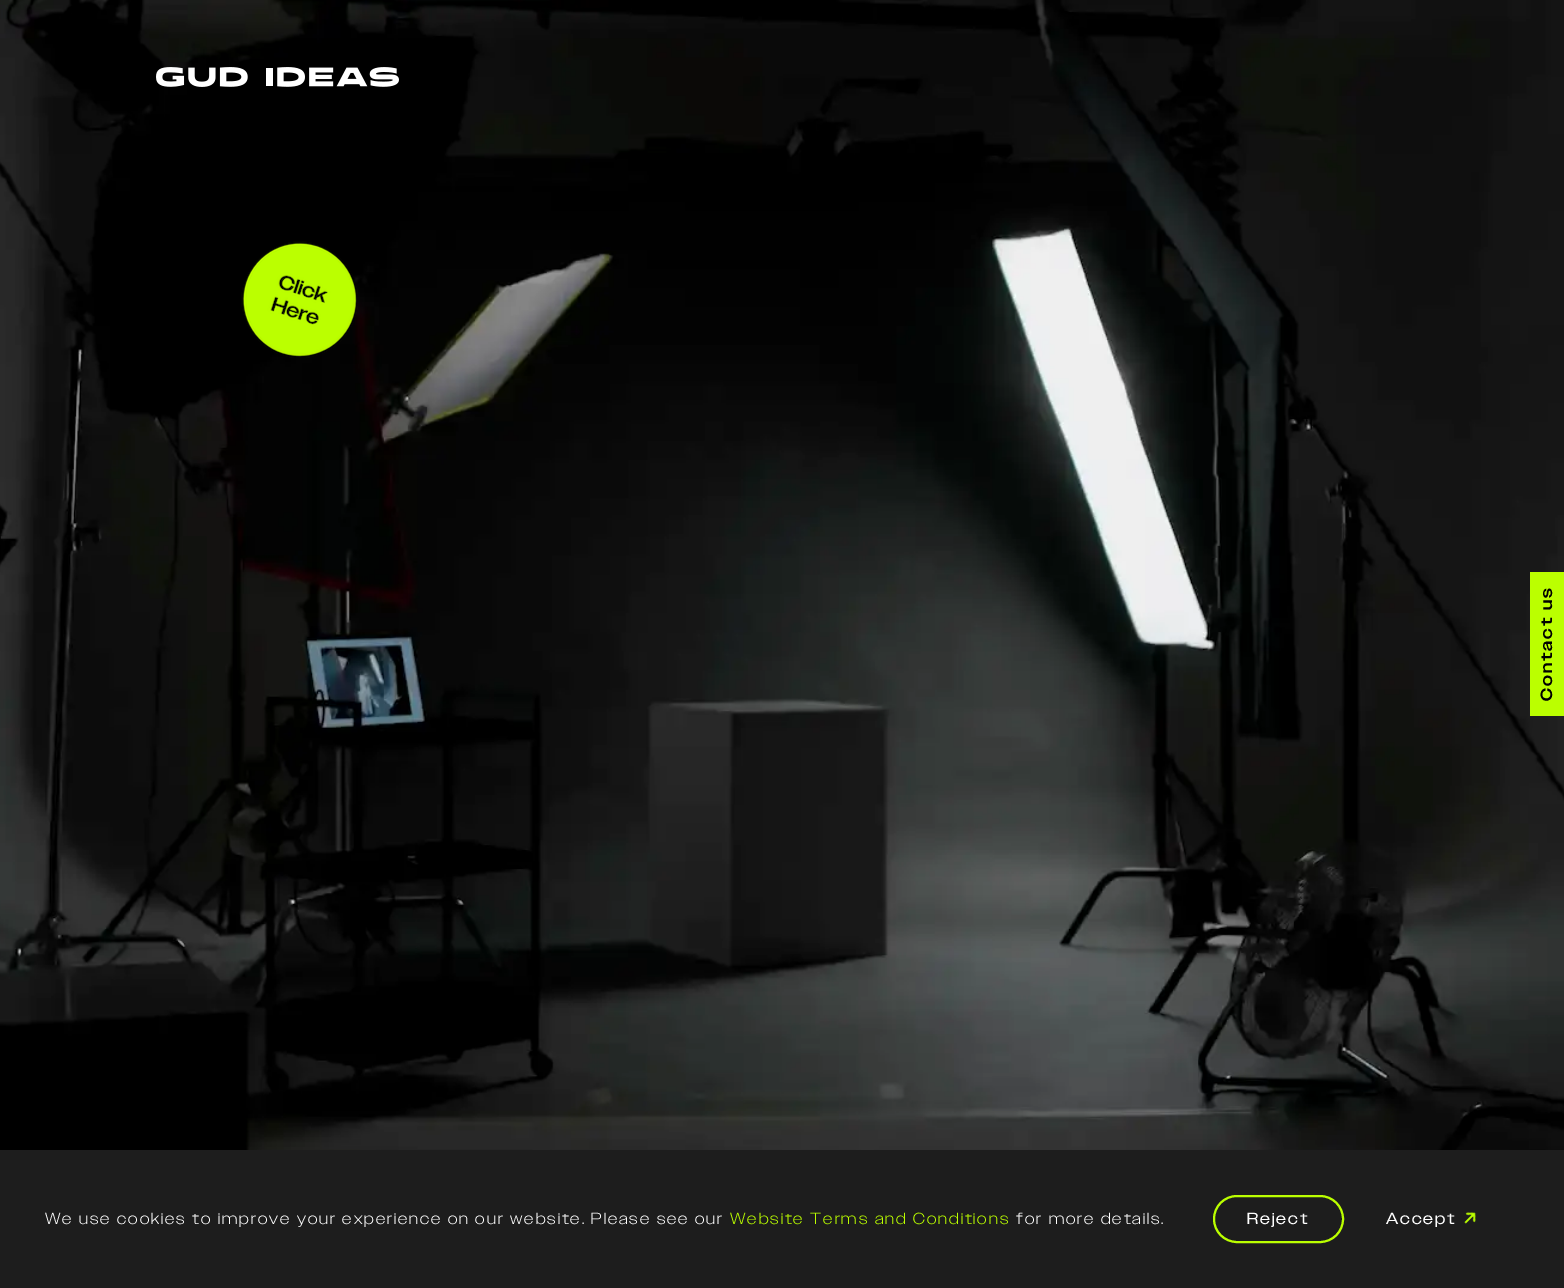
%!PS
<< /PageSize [1564 1288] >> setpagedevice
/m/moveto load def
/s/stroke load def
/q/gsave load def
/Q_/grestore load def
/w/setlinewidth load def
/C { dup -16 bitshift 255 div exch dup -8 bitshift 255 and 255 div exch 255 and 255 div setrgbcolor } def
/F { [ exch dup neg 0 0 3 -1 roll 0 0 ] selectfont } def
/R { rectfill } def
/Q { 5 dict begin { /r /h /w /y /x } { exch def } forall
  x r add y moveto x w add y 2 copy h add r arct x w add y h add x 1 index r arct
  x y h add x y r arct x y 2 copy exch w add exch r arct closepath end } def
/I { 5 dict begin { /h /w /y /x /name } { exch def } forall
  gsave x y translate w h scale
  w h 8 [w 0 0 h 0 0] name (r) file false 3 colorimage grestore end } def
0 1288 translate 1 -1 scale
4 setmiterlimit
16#FFFFFF C
0 0 1564 1288 R
(1.rgb) 0 0 1564 1150 I
(2.rgb) 156 67 243 20 I
(3.rgb) 241 241 117 117 I
16#BBFF00 C
1530 572 34 144 R
/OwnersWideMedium-Medium 16 F
16#000000 C
q 1552 701 translate -90 rotate 0 0 m 2 0 (Contact us) ashow Q_
16#1D1D1D C
0 1150 1564 138 R
/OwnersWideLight-Light 16 F
16#FFFFFF C
45 1224 m 2 0 (We use cookies to improve your experience on our website. Please see our) ashow
16#BBFF00 C
730 1224 m 2 0 (Website Terms and Conditions) ashow
16#FFFFFF C
1016 1224 m 2 0 (for more details.) ashow
16#BBFF00 C
2 w
1214 1196 129 46 23 Q s
/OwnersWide-Regular 16 F
16#FFFFFF C
1247 1224 m 2 0 (Reject) ashow
1386 1224 m 2 0 (Accept) ashow
(4.rgb) 1464 1212 12 12 I
showpage
